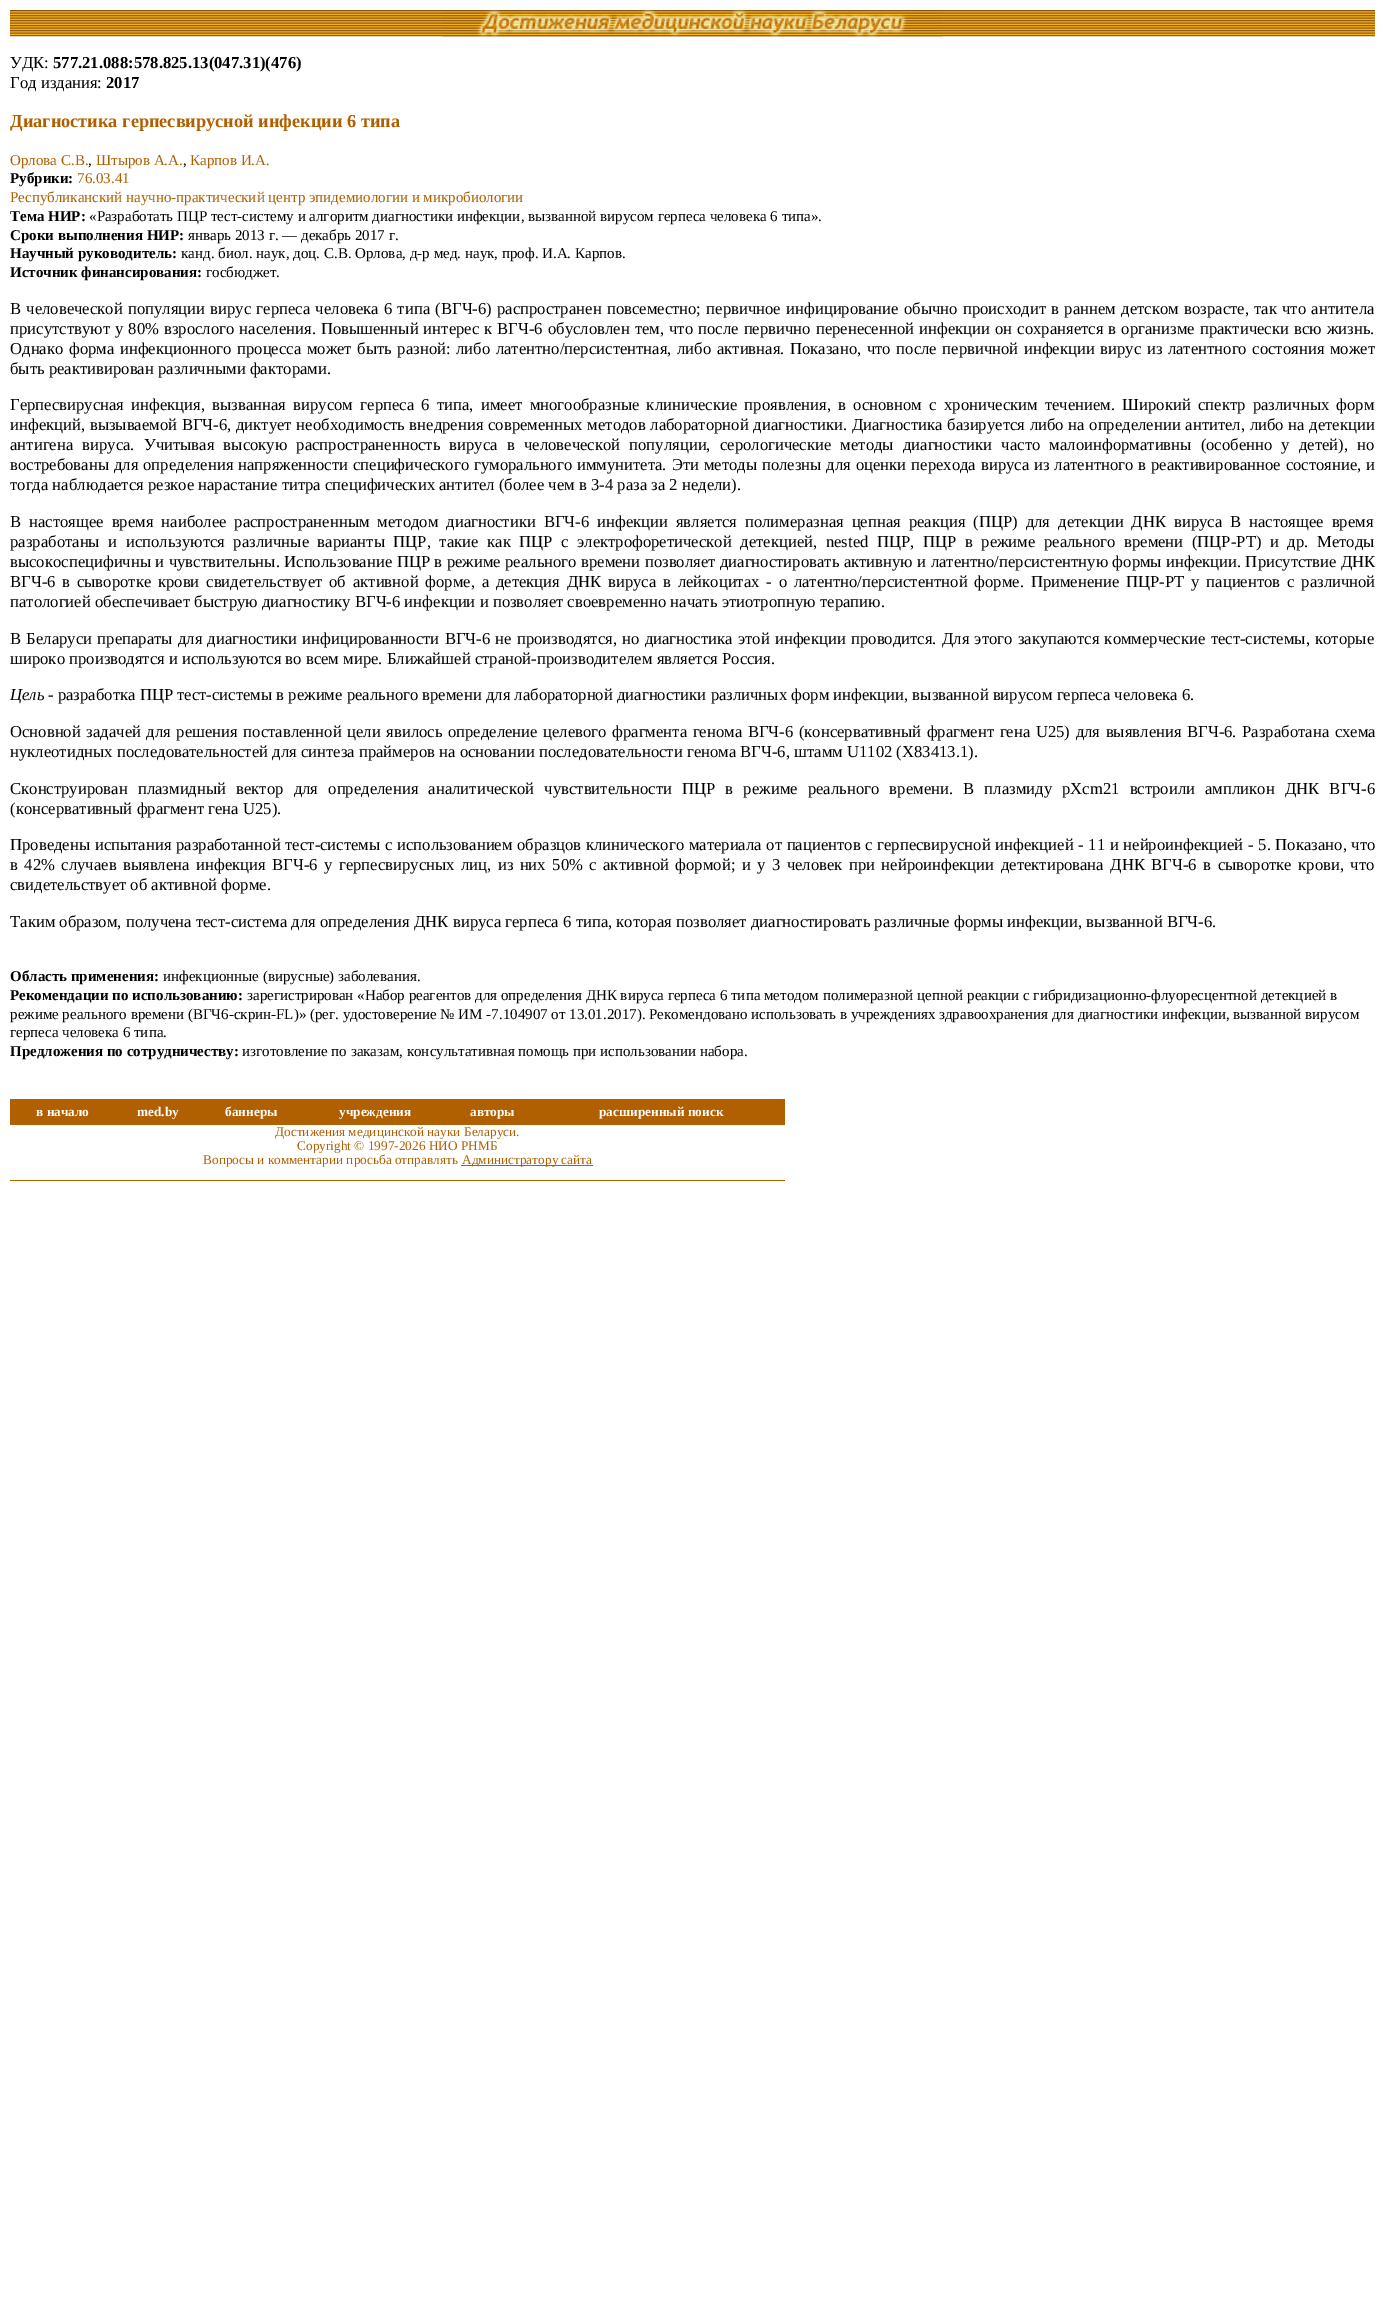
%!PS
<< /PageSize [1384 2316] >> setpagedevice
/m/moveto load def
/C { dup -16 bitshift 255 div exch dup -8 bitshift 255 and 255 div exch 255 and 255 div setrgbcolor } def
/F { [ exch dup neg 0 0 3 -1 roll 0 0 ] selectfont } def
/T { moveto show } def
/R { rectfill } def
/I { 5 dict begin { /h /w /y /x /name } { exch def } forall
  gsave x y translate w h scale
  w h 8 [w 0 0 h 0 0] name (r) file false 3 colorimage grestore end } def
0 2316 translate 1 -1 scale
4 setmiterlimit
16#FFFFFF C
0 0 1384 2316 R
(1.rgb) 10 10 1365 27 I
(2.rgb) 442 10 501 27 I
/LiberationSerif-Regular 16.67 F
16#000000 C
(УДК:) 10 68 T
/LiberationSerif-Bold 16.67 F
(577.21.088:578.825.13\(047.31\)\(476\)) 53 68 T
/LiberationSerif-Regular 16.67 F
(Год издания:) 10 88 T
/LiberationSerif-Bold 16.67 F
(2017) 106 88 T
/LiberationSerif-Bold 18.3 F
16#B06000 C
(Диагностика герпесвирусной инфекции 6 типа) 10 127 T
/LiberationSerif-Regular 15 F
(Орлова С.В.) 10 165 T
16#000000 C
(,) 88 165 T
16#B06000 C
(Штыров А.А.) 96 165 T
16#000000 C
(,) 183 165 T
16#B06000 C
(Карпов И.А.) 190 165 T
/LiberationSerif-Bold 15 F
16#000000 C
(Рубрики:) 10 183 T
/LiberationSerif-Regular 15 F
16#B06000 C
(76.03.41) 77 183 T
(Республиканский научно-практический центр эпидемиологии и микробиологии) 10 202 T
/LiberationSerif-Bold 15 F
16#000000 C
(Тема НИР:) 10 221 T
/LiberationSerif-Regular 15 F
(«Разработать ПЦР тест-систему и алгоритм диагностики инфекции, вызванной вирусом герпеса человека 6 типа».) 89 221 T
/LiberationSerif-Bold 15 F
(Сроки выполнения НИР:) 10 240 T
/LiberationSerif-Regular 15 F
(январь 2013 г. — декабрь 2017 г.) 188 240 T
/LiberationSerif-Bold 15 F
(Научный руководитель:) 10 258 T
/LiberationSerif-Regular 15 F
(канд. биол. наук, доц. С.В. Орлова, д-р мед. наук, проф. И.А. Карпов.) 181 258 T
/LiberationSerif-Bold 15 F
(Источник финансирования:) 10 277 T
/LiberationSerif-Regular 15 F
(госбюджет.) 206 277 T
/LiberationSerif-Regular 16.67 F
10 314 m 1.1 0 32 (В человеческой популяции вирус герпеса человека 6 типа \(ВГЧ-6\) распространен повсеместно; первичное инфицирование обычно происходит в раннем детском возрасте, так что антитела) widthshow
10 334 m .9 0 32 (присутствуют у 80% взрослого населения. Повышенный интерес к ВГЧ-6 обусловлен тем, что после первично перенесенной инфекции он сохраняется в организме практически всю жизнь.) widthshow
10 354 m 1.4 0 32 (Однако форма инфекционного процесса может быть разной: либо латентно/персистентная, либо активная. Показано, что после первичной инфекции вирус из латентного состояния может) widthshow
(быть реактивирован различными факторами.) 10 374 T
10 410 m 3.1 0 32 (Герпесвирусная инфекция, вызванная вирусом герпеса 6 типа, имеет многообразные клинические проявления, в основном с хроническим течением. Широкий спектр различных форм) widthshow
10 430 m .5 0 32 (инфекций, вызываемой ВГЧ-6, диктует необходимость внедрения современных методов лабораторной диагностики. Диагностика базируется либо на определении антител, либо на детекции) widthshow
10 450 m 5 0 32 (антигена вируса. Учитывая высокую распространенность вируса в человеческой популяции, серологические методы диагностики часто малоинформативны \(особенно у детей\), но) widthshow
10 470 m .75 0 32 (востребованы для определения напряженности специфического гуморального иммунитета. Эти методы полезны для оценки перехода вируса из латентного в реактивированное состояние, и) widthshow
(тогда наблюдается резкое нарастание титра специфических антител \(более чем в 3-4 раза за 2 недели\).) 10 490 T
10 527 m 3.75 0 32 (В настоящее время наиболее распространенным методом диагностики ВГЧ-6 инфекции является полимеразная цепная реакция \(ПЦР\) для детекции ДНК вируса В настоящее время) widthshow
10 547 m 4.4 0 32 (разработаны и используются различные варианты ПЦР, такие как ПЦР с электрофоретической детекцией, nested ПЦР, ПЦР в режиме реального времени \(ПЦР-РТ\) и др. Методы) widthshow
10 567 m .25 0 32 (высокоспецифичны и чувствительны. Использование ПЦР в режиме реального времени позволяет диагностировать активную и латентно/персистентную формы инфекции. Присутствие ДНК) widthshow
10 587 m 2.6 0 32 (ВГЧ-6 в сыворотке крови свидетельствует об активной форме, а детекция ДНК вируса в лейкоцитах - о латентно/персистентной форме. Применение ПЦР-РТ у пациентов с различной) widthshow
(патологией обеспечивает быструю диагностику ВГЧ-6 инфекции и позволяет своевременно начать этиотропную терапию.) 10 607 T
10 644 m 1.1 0 32 (В Беларуси препараты для диагностики инфицированности ВГЧ-6 не производятся, но диагностика этой инфекции проводится. Для этого закупаются коммерческие тест-системы, которые) widthshow
(широко производятся и используются во всем мире. Ближайшей страной-производителем является Россия.) 10 664 T
/LiberationSerif-Italic 16.67 F
(Цель) 10 700 T
/LiberationSerif-Regular 16.67 F
(- разработка ПЦР тест-системы в режиме реального времени для лабораторной диагностики различных форм инфекции, вызванной вирусом герпеса человека 6.) 48 700 T
10 737 m 1.4 0 32 (Основной задачей для решения поставленной цели явилось определение целевого фрагмента генома ВГЧ-6 \(консервативный фрагмент гена U25\) для выявления ВГЧ-6. Разработана схема) widthshow
(нуклеотидных последовательностей для синтеза праймеров на основании последовательности генома ВГЧ-6, штамм U1102 \(X83413.1\).) 10 757 T
10 794 m 6 0 32 (Сконструирован плазмидный вектор для определения аналитической чувствительности ПЦР в режиме реального времени. В плазмиду pXcm21 встроили ампликон ДНК ВГЧ-6) widthshow
(\(консервативный фрагмент гена U25\).) 10 814 T
10 850 m .5 0 32 (Проведены испытания разработанной тест-системы с использованием образцов клинического материала от пациентов с герпесвирусной инфекцией - 11 и нейроинфекцией - 5. Показано, что) widthshow
10 870 m 2.3 0 32 (в 42% случаев выявлена инфекция ВГЧ-6 у герпесвирусных лиц, из них 50% с активной формой; и у 3 человек при нейроинфекции детектирована ДНК ВГЧ-6 в сыворотке крови, что) widthshow
(свидетельствует об активной форме.) 10 890 T
(Таким образом, получена тест-система для определения ДНК вируса герпеса 6 типа, которая позволяет диагностировать различные формы инфекции, вызванной ВГЧ-6.) 10 927 T
/LiberationSerif-Bold 15 F
(Область применения:) 10 981 T
/LiberationSerif-Regular 15 F
(инфекционные \(вирусные\) заболевания.) 163 981 T
/LiberationSerif-Bold 15 F
(Рекомендации по использованию:) 10 1000 T
/LiberationSerif-Regular 15 F
(зарегистрирован «Набор реагентов для определения ДНК вируса герпеса 6 типа методом полимеразной цепной реакции с гибридизационно-флуоресцентной детекцией в) 247 1000 T
(режиме реального времени \(ВГЧ6-скрин-FL\)» \(рег. удостоверение № ИМ -7.104907 от 13.01.2017\). Рекомендовано использовать в учреждениях здравоохранения для диагностики инфекции, вызванной вирусом) 10 1019 T
(герпеса человека 6 типа.) 10 1037 T
/LiberationSerif-Bold 15 F
(Предложения по сотрудничеству:) 10 1056 T
/LiberationSerif-Regular 15 F
(изготовление по заказам, консультативная помощь при использовании набора.) 242 1056 T
16#B06000 C
10 1099 775 26 R
/LiberationSerif-Bold 13.3 F
16#FFFFFF C
(в начало) 36 1116 T
(med.by) 137 1116 T
(баннеры) 225 1116 T
(учреждения) 339 1116 T
(авторы) 470 1116 T
(расширенный поиск) 599 1116 T
/LiberationSerif-Regular 13.3 F
16#B06000 C
(Достижения медицинской науки Беларуси.) 275 1136 T
(Copyright © 1997-2026 НИО РНМБ) 297 1150 T
(Вопросы и комментарии просьба отправлять) 203 1164 T
461 1165 132 1 R
(Администратору сайта) 462 1164 T
10 1180 775 1 R
showpage
